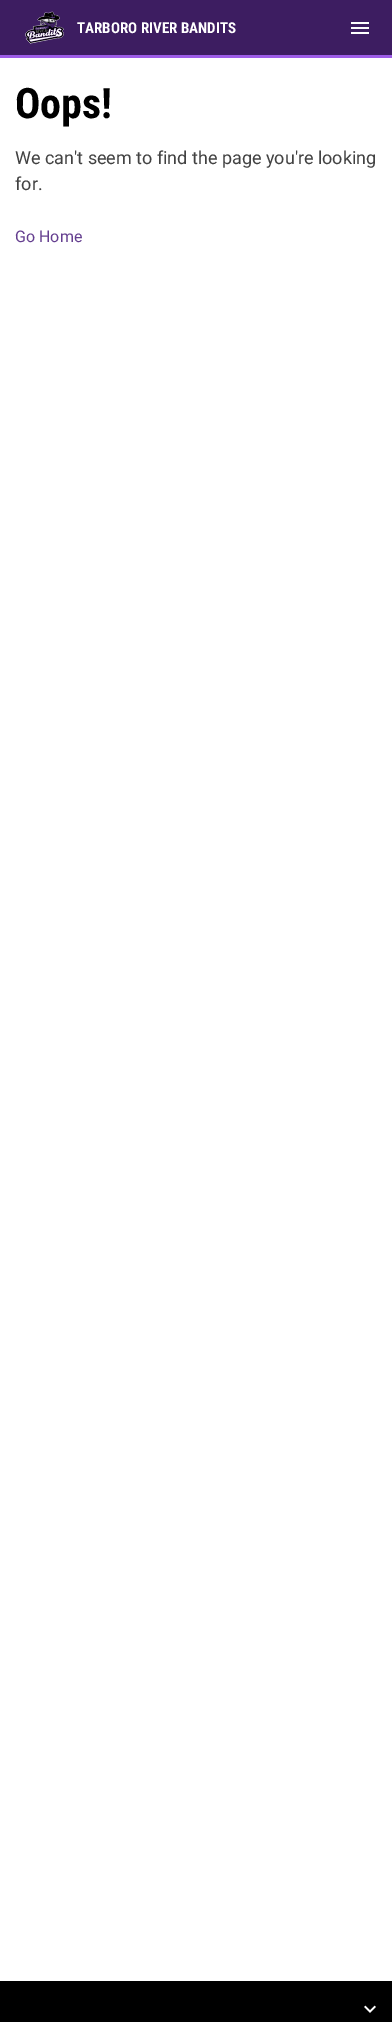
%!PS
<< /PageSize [392 2022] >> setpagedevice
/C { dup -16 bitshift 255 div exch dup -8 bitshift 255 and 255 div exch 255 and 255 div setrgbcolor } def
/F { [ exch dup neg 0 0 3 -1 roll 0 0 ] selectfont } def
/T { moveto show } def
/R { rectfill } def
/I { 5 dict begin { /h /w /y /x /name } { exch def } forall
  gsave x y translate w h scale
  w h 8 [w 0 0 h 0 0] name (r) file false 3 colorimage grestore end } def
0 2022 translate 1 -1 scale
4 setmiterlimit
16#FFFFFF C
0 0 392 2022 R
16#3D1D61 C
0 0 392 55 R
(1.rgb) 25 11 39 33 I
/RobotoCondensed-Bold 15 F
16#FFFFFF C
(TARBORO RIVER BANDITS) 77 33 T
(2.rgb) 351 22 18 12 I
16#9D5CE7 C
0 55 392 3 R
/RobotoCondensed-Bold 42 F
16#000000 C
(Oops!) 15 118 T
/Roboto-Regular 18 F
16#424242 C
(We can't seem to find the page you're looking) 15 164 T
(for.) 15 190 T
/Roboto-Regular 16 F
16#653F90 C
(Go Home) 15 242 T
16#000000 C
0 1981 392 41 R
(3.rgb) 364 2005 12 8 I
showpage
